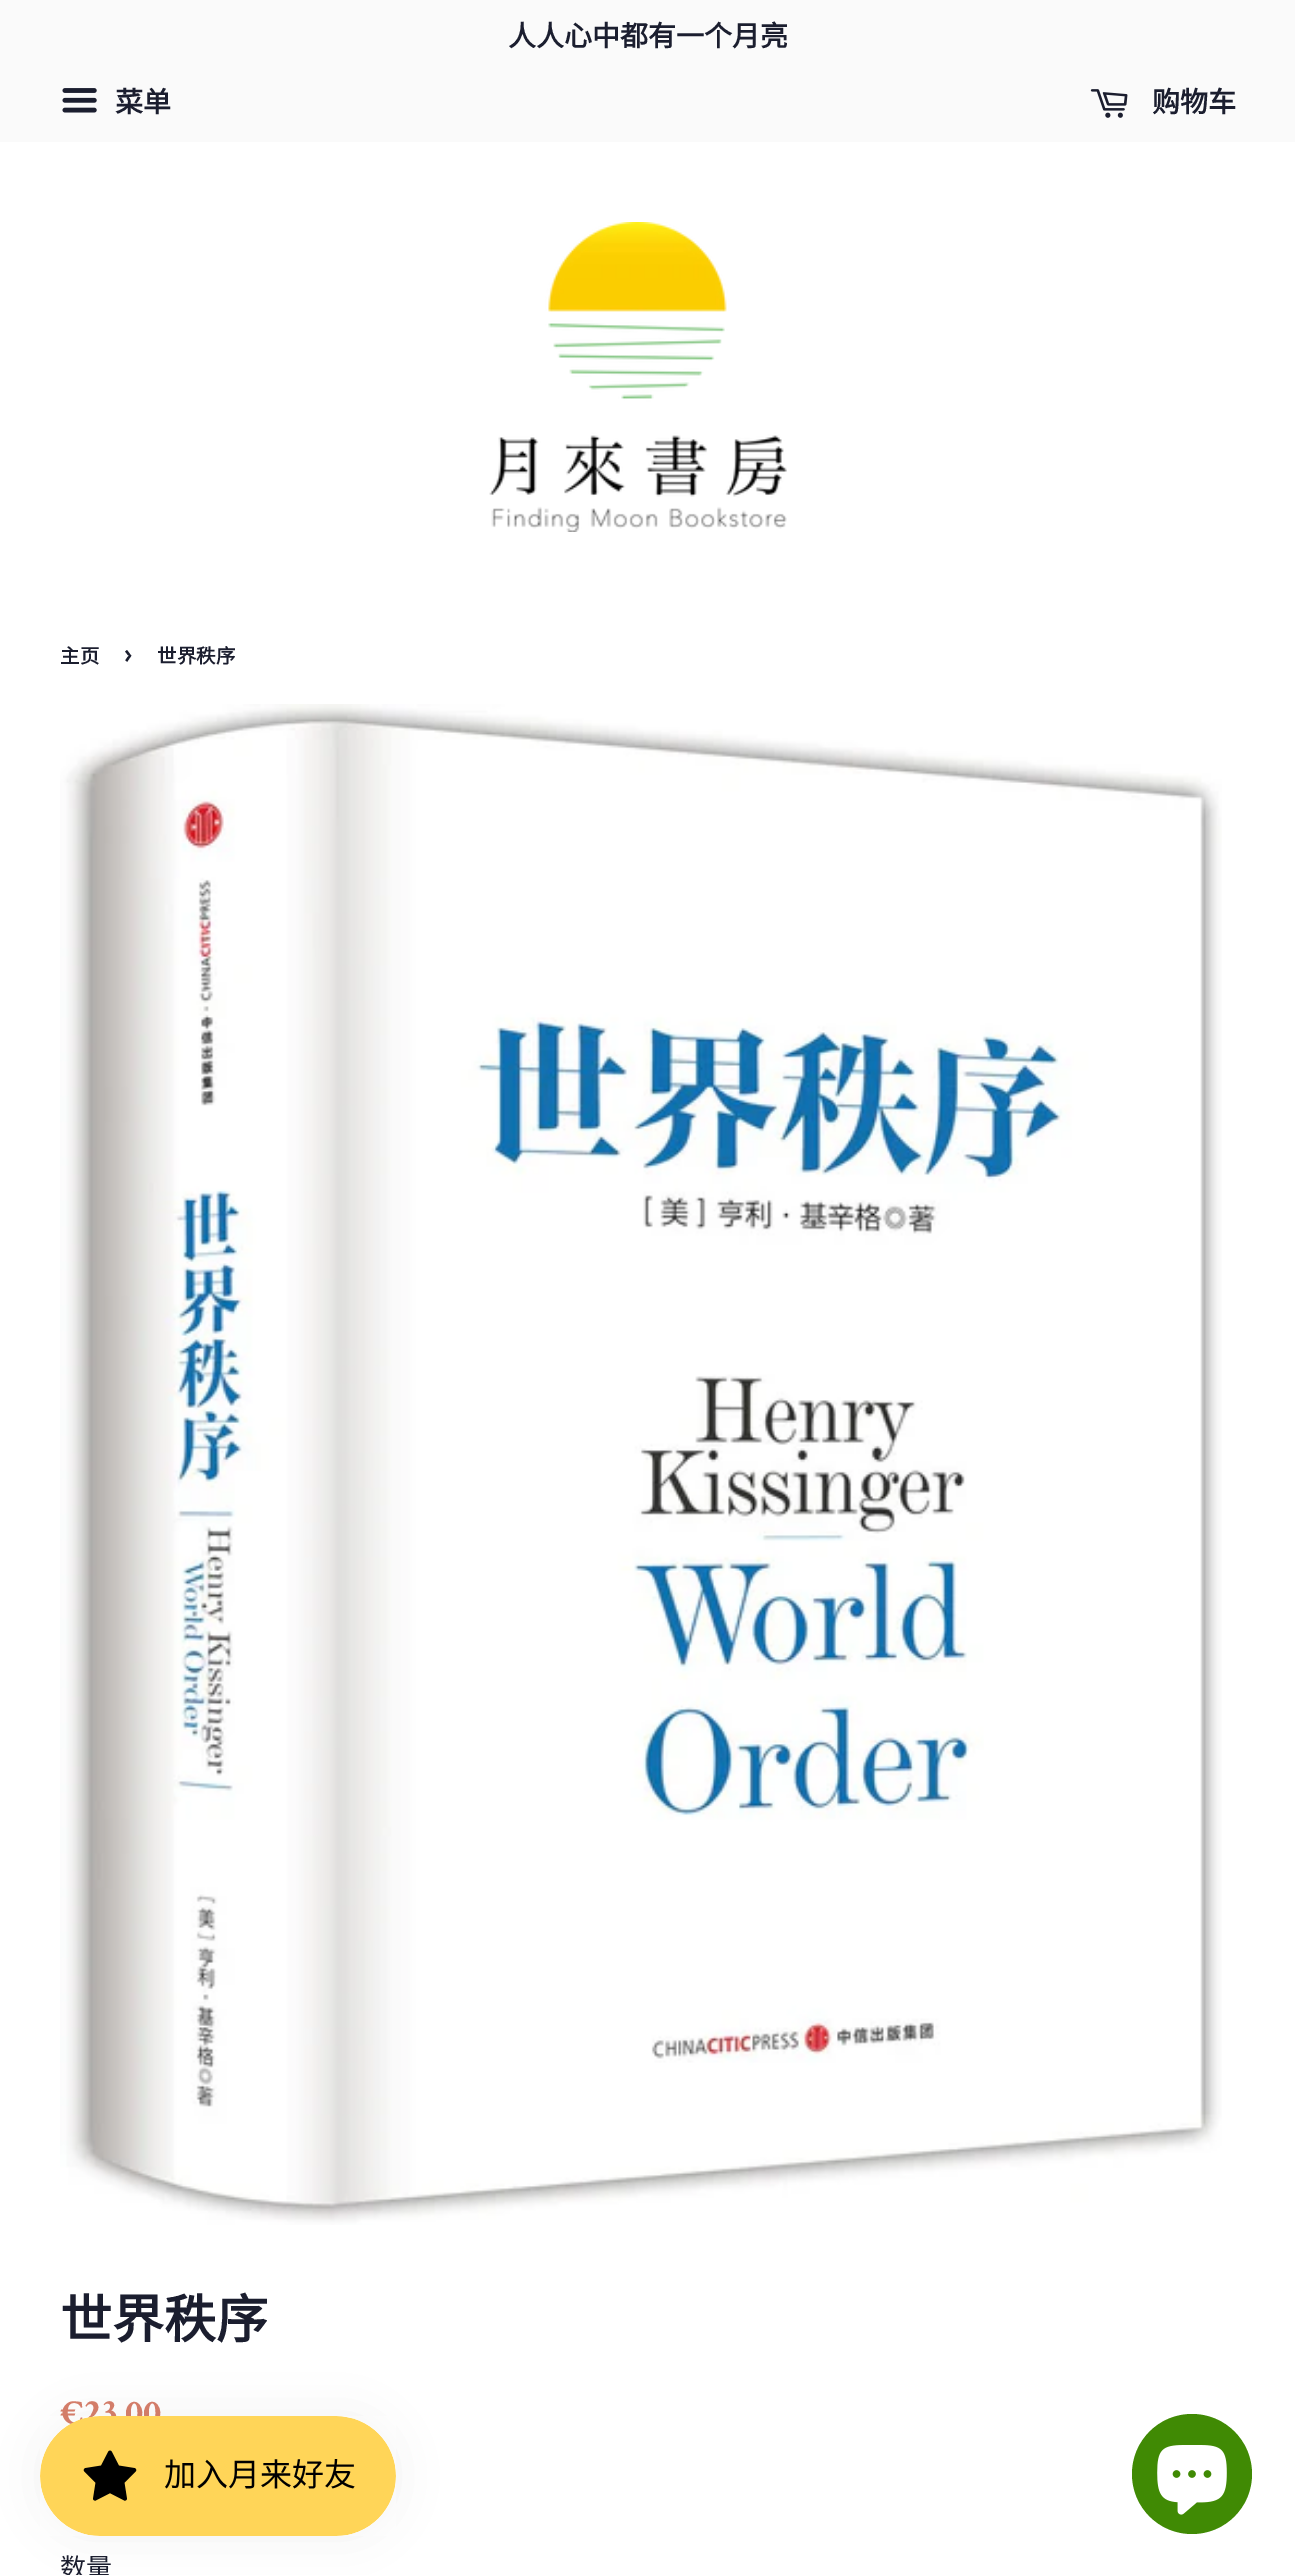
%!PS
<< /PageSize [1295 2575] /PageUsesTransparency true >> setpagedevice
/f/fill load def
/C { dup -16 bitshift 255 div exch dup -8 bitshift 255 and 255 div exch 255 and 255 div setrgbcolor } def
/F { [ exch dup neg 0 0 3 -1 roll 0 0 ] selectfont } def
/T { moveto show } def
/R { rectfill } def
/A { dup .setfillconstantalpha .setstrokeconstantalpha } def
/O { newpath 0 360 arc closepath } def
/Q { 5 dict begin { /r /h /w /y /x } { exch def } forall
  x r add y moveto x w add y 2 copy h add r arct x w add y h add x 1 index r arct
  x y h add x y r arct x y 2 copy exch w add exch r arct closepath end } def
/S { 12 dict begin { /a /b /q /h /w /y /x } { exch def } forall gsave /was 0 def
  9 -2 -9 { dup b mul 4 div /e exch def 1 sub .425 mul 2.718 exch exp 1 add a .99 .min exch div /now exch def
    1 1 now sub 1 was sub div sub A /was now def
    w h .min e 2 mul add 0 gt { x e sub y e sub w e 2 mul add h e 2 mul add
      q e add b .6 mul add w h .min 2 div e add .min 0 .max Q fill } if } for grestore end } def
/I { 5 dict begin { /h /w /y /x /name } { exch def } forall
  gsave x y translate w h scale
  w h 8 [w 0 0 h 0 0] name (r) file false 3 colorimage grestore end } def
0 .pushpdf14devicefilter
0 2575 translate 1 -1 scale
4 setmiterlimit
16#FFFFFF C
0 0 1295 2575 R
16#FAFAFA C
0 0 1295 142 R
/NotoSansCJKSC-Bold 28 F
16#1B1E2F C
(人人心中都有一个月亮) 508 46 T
(1.rgb) 62 88 35 25 I
(菜单) 115 112 T
(2.rgb) 1090 89 38 29 I
(购物车) 1152 112 T
(3.rgb) 489 222 298 310 I
/NotoSansCJKSC-Bold 19.5 F
(主页) 60 663 T
/PTSans-Bold 27 F
(›) 124 663 T
/NotoSansCJKSC-Bold 19.5 F
(世界秩序) 157 663 T
(4.rgb) 60 704 1162 1521 I
/NotoSansCJKSC-Bold 52 F
(世界秩序) 60 2338 T
/CrimsonText-Bold 36.5 F
16#D77E6A C
(€23,00) 60 2424 T
/NotoSansCJKSC-Regular 26 F
16#1B1E2F C
(数量) 60 2577 T
16#000000 C
40 2416 356 120 60 25 .05 S
(5.rgb) 40 2416 356 120 I
16#408A04 C
1192 2474 60 O f
(6.rgb) 1157 2445 70 70 I
.poppdf14devicefilter showpage
